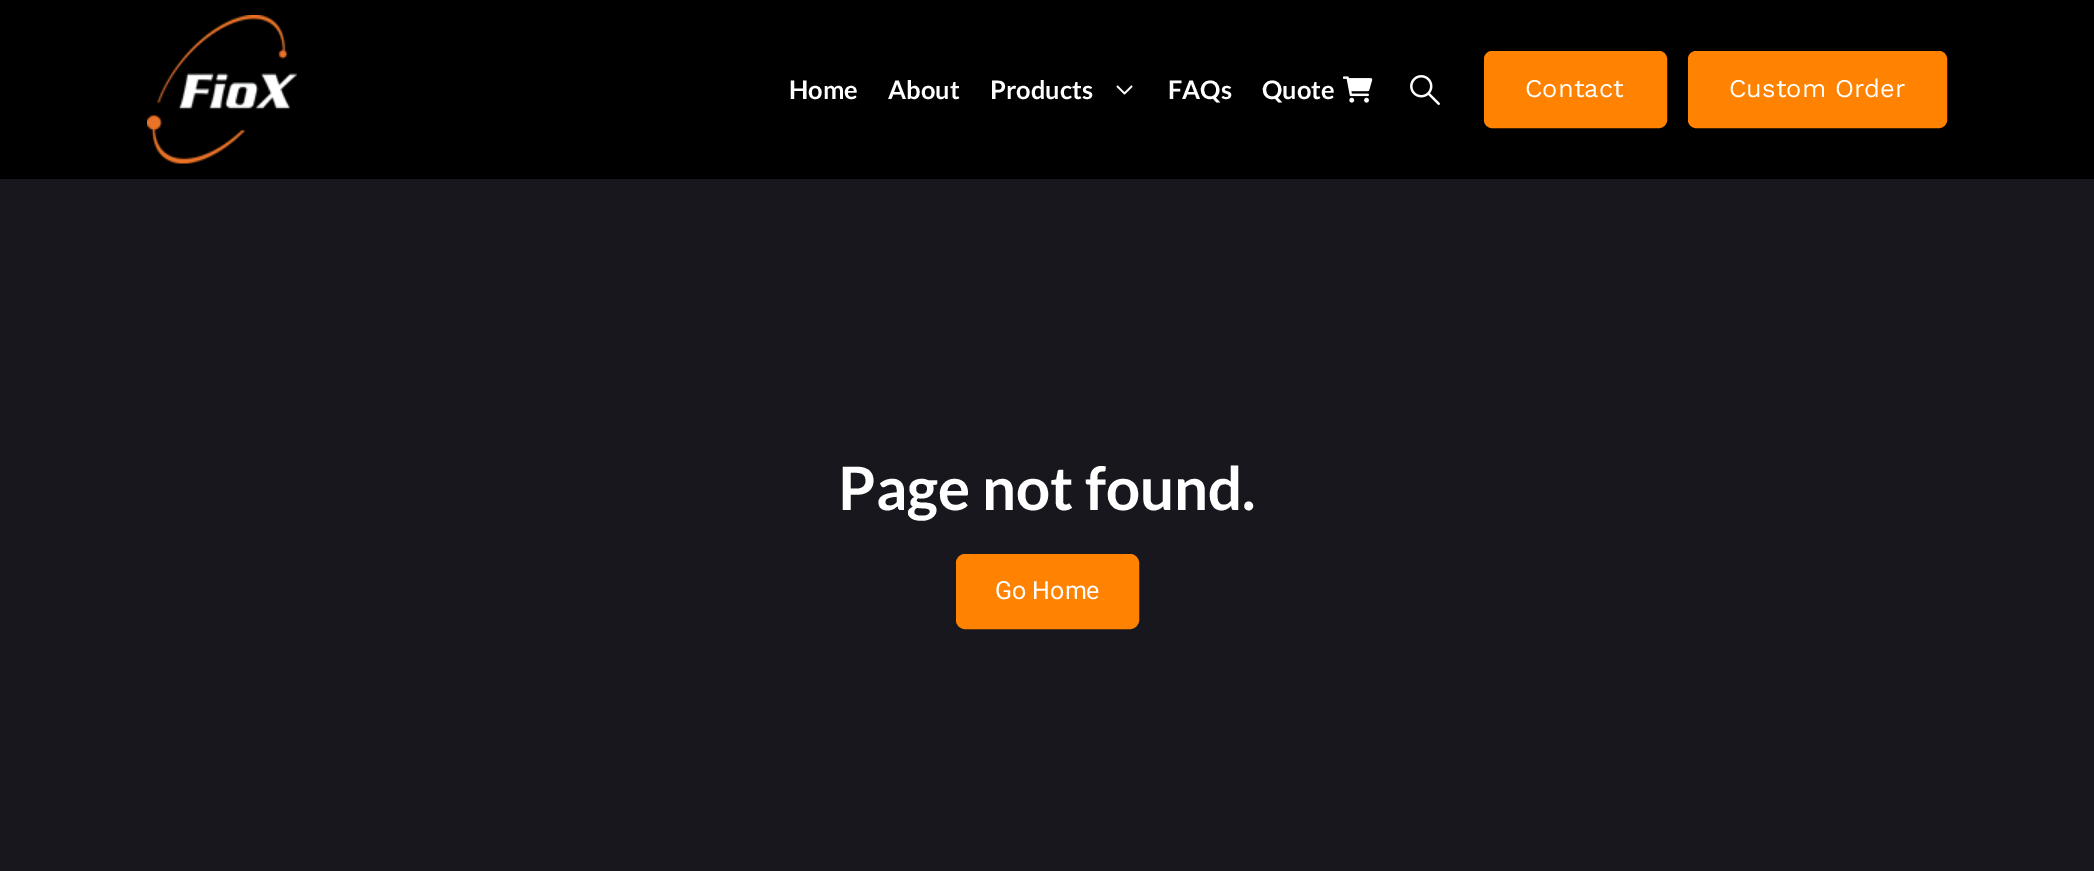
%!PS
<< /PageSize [2094 871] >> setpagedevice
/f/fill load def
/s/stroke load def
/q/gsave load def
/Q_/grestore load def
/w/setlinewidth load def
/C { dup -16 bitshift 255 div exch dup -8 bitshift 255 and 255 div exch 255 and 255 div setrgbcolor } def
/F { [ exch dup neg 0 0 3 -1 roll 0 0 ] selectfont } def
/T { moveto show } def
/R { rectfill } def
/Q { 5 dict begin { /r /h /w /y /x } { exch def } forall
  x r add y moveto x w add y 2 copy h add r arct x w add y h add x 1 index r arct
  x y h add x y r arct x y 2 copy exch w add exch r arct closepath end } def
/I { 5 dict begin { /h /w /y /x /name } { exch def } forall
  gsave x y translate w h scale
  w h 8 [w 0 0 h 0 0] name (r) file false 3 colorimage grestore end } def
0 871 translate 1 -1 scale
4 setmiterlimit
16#000000 C
0 0 2094 871 R
(1.rgb) 147 15 150 149 I
/Lato-Bold 25.5 F
16#FFFFFF C
(Home) 789 99 T
(About) 888 99 T
(Products) 990 99 T
(2.rgb) 1116 85 17 10 I
(FAQs) 1168 99 T
(Quote) 1262 99 T
(3.rgb) 1343 76 30 27 I
(4.rgb) 1410 75 30 30 I
16#FF8300 C
1486.5 53.5 178 72 5.5 Q q f Q_
5 w
s
/WorkSans-Regular 25.5 F
16#FFFFFF C
(Contact) 1525 97 T
16#FF8300 C
1690.5 53.5 254 72 5.5 Q q f Q_
s
16#FFFFFF C
(Custom Order) 1729 97 T
16#17171D C
0 179 2094 692 R
/Lato-Bold 60 F
16#FFFFFF C
(Page not found.) 838 510 T
16#FF8300 C
957 555 181 73 8 Q q f Q_
2 w
s
/Roboto-Regular 25 F
16#FFFFFF C
(Go Home) 995 599 T
showpage
